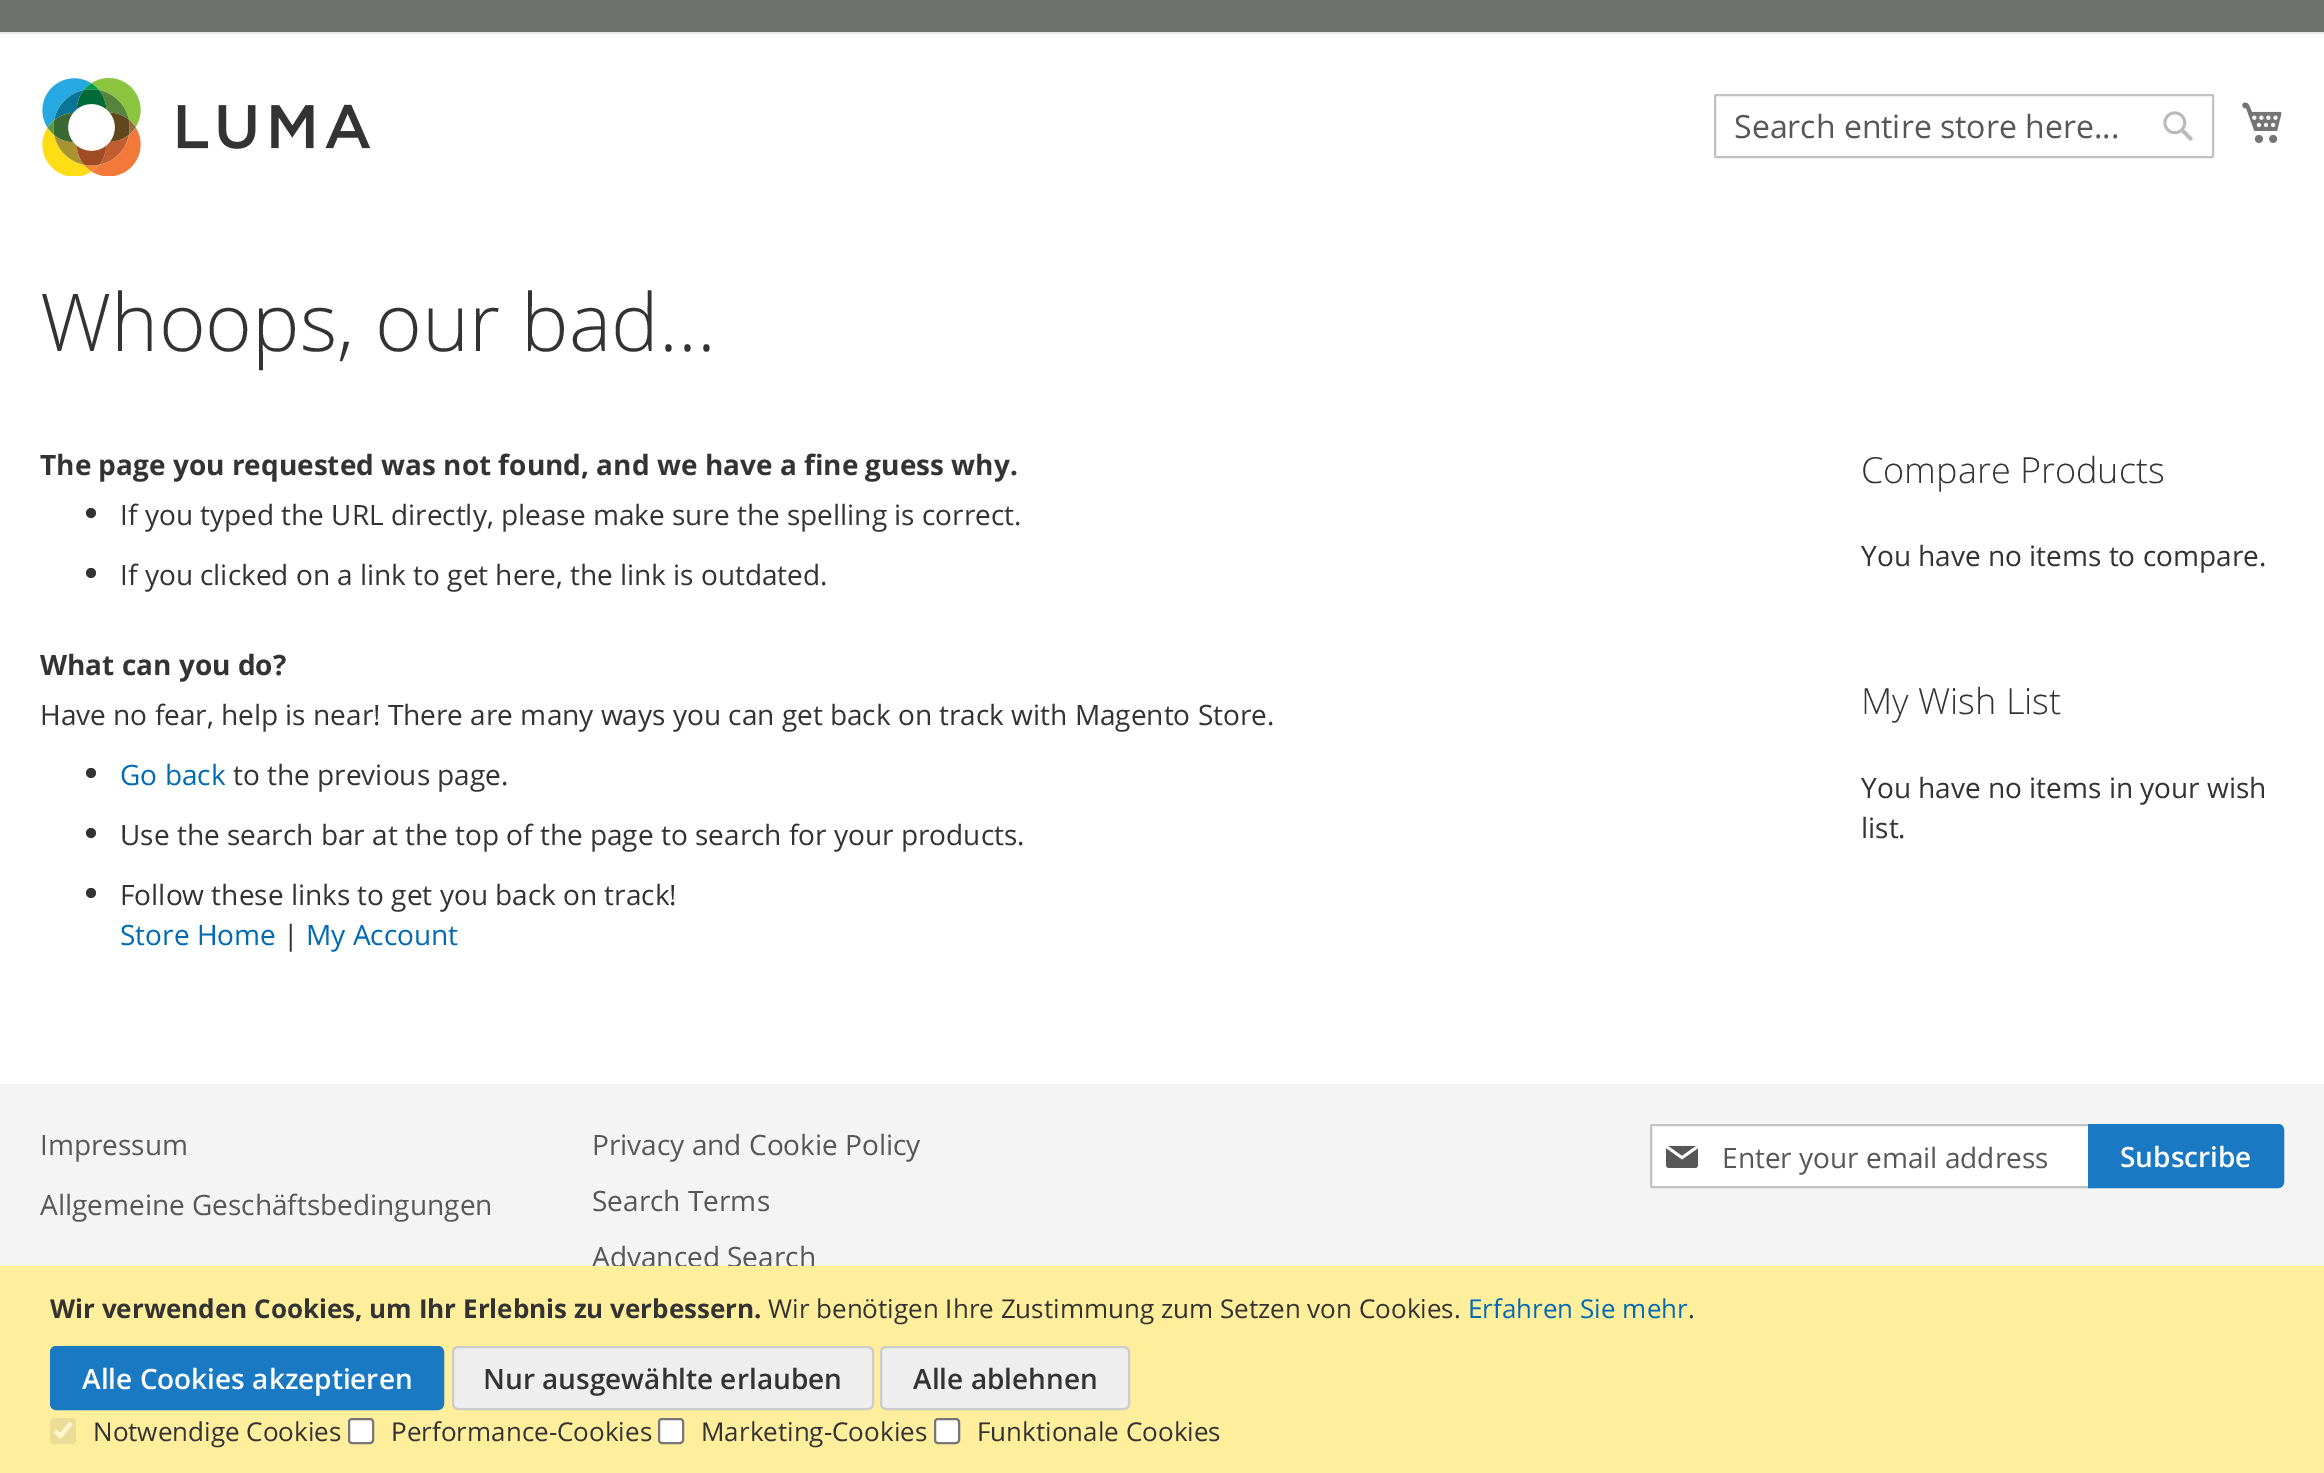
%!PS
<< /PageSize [2324 1473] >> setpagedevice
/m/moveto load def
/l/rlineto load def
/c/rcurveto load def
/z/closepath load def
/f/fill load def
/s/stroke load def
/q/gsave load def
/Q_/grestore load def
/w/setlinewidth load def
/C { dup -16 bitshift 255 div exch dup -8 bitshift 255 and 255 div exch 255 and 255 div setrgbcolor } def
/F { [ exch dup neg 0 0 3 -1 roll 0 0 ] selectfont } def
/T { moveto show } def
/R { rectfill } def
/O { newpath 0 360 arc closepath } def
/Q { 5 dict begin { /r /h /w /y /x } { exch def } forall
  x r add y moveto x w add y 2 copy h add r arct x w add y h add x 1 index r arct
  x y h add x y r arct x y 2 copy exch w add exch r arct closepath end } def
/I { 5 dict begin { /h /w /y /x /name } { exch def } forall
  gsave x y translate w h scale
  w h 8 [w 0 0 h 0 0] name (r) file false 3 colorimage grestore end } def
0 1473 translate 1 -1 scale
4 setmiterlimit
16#FFFFFF C
0 0 2324 1473 R
16#6E716E C
0 0 2324 32 R
16#E8E8E8 C
0 32 2324 2 R
(1.rgb) 42 78 329 98 I
16#C2C2C2 C
2 w
1715 95 498 62 1 Q s
/OpenSans-Regular 32 F
16#575757 C
(Search entire store here...) 1734 138 T
(2.rgb) 2163 111 30 30 I
(3.rgb) 2242 102 40 41 I
/OpenSans-Light 80 F
16#333333 C
(Whoops, our bad...) 40 351 T
/OpenSans-Bold 28 F
(The page you requested was not found, and we have a fine guess why.) 40 475 T
91 513 5 O f
/OpenSans-Regular 28 F
(If you typed the URL directly, please make sure the spelling is correct.) 120 525 T
91 573 5 O f
(If you clicked on a link to get here, the link is outdated.) 120 585 T
/OpenSans-Bold 28 F
(What can you do?) 40 675 T
/OpenSans-Regular 28 F
(Have no fear, help is near! There are many ways you can get back on track with Magento Store.) 40 725 T
91 773 5 O f
16#006BB4 C
(Go back) 120 785 T
16#333333 C
(to the previous page.) 233 785 T
91 833 5 O f
(Use the search bar at the top of the page to search for your products.) 120 845 T
91 893 5 O f
(Follow these links to get you back on track!) 120 905 T
16#006BB4 C
(Store Home) 120 945 T
16#333333 C
(|) 283 945 T
16#006BB4 C
(My Account) 306 945 T
/OpenSans-Light 36 F
16#333333 C
(Compare Products) 1861 483 T
/OpenSans-Regular 28 F
(You have no items to compare.) 1861 566 T
/OpenSans-Light 36 F
(My Wish List) 1861 714 T
/OpenSans-Regular 28 F
(You have no items in your wish) 1861 798 T
(list.) 1861 838 T
16#F4F4F4 C
0 1084 2324 182 R
16#575757 C
(Impressum) 40 1155 T
(Allgemeine Geschäftsbedingungen) 40 1215 T
(Privacy and Cookie Policy) 592 1155 T
(Search Terms) 592 1211 T
(Advanced Search) 592 1267 T
16#FFFFFF C
1651 1125 438 62 1 Q q f Q_
16#C2C2C2 C
s
(4.rgb) 1666 1145 32 23 I
16#575757 C
(Enter your email address) 1722 1168 T
16#1979C3 C
2089 1125 m 189 0 l 3 0 5 2 5 5 c 0 52 l 0 3 -2 5 -5 5 c -189 0 l z q f Q_
s
/OpenSans-SemiBold 28 F
16#FFFFFF C
(Subscribe) 2120 1167 T
16#FFEE9C C
0 1266 2324 207 R
/OpenSans-Bold 26 F
16#333333 C
(Wir verwenden Cookies, um Ihr Erlebnis zu verbessern.) 50 1318 T
/OpenSans-Regular 26 F
(Wir benötigen Ihre Zustimmung zum Setzen von Cookies.) 768 1318 T
16#006BB4 C
(Erfahren Sie mehr) 1468 1318 T
16#333333 C
(.) 1688 1318 T
16#1979C3 C
51 1347 392 62 5 Q q f Q_
s
/OpenSans-SemiBold 28 F
16#FFFFFF C
(Alle Cookies akzeptieren) 82 1389 T
16#EEEEEE C
453 1347 420 62 5 Q q f Q_
16#CCCCCC C
s
16#333333 C
(Nur ausgewählte erlauben) 483 1389 T
16#EEEEEE C
881 1347 248 62 5 Q q f Q_
16#CCCCCC C
s
16#333333 C
(Alle ablehnen) 913 1389 T
16#EBDC96 C
50 1418 26 26 4 Q f
16#FFF7CE C
4.2 w
55 1431 m 5.5 5 l 10.5 -13 l s
/OpenSans-Regular 26 F
16#333333 C
(Notwendige Cookies) 93 1441 T
16#FFFFFF C
349 1419 24 24 3 Q q f Q_
16#767676 C
2 w
s
16#333333 C
(Performance-Cookies) 391 1441 T
16#FFFFFF C
659 1419 24 24 3 Q q f Q_
16#767676 C
s
16#333333 C
(Marketing-Cookies) 701 1441 T
16#FFFFFF C
935 1419 24 24 3 Q q f Q_
16#767676 C
s
16#333333 C
(Funktionale Cookies) 977 1441 T
showpage
